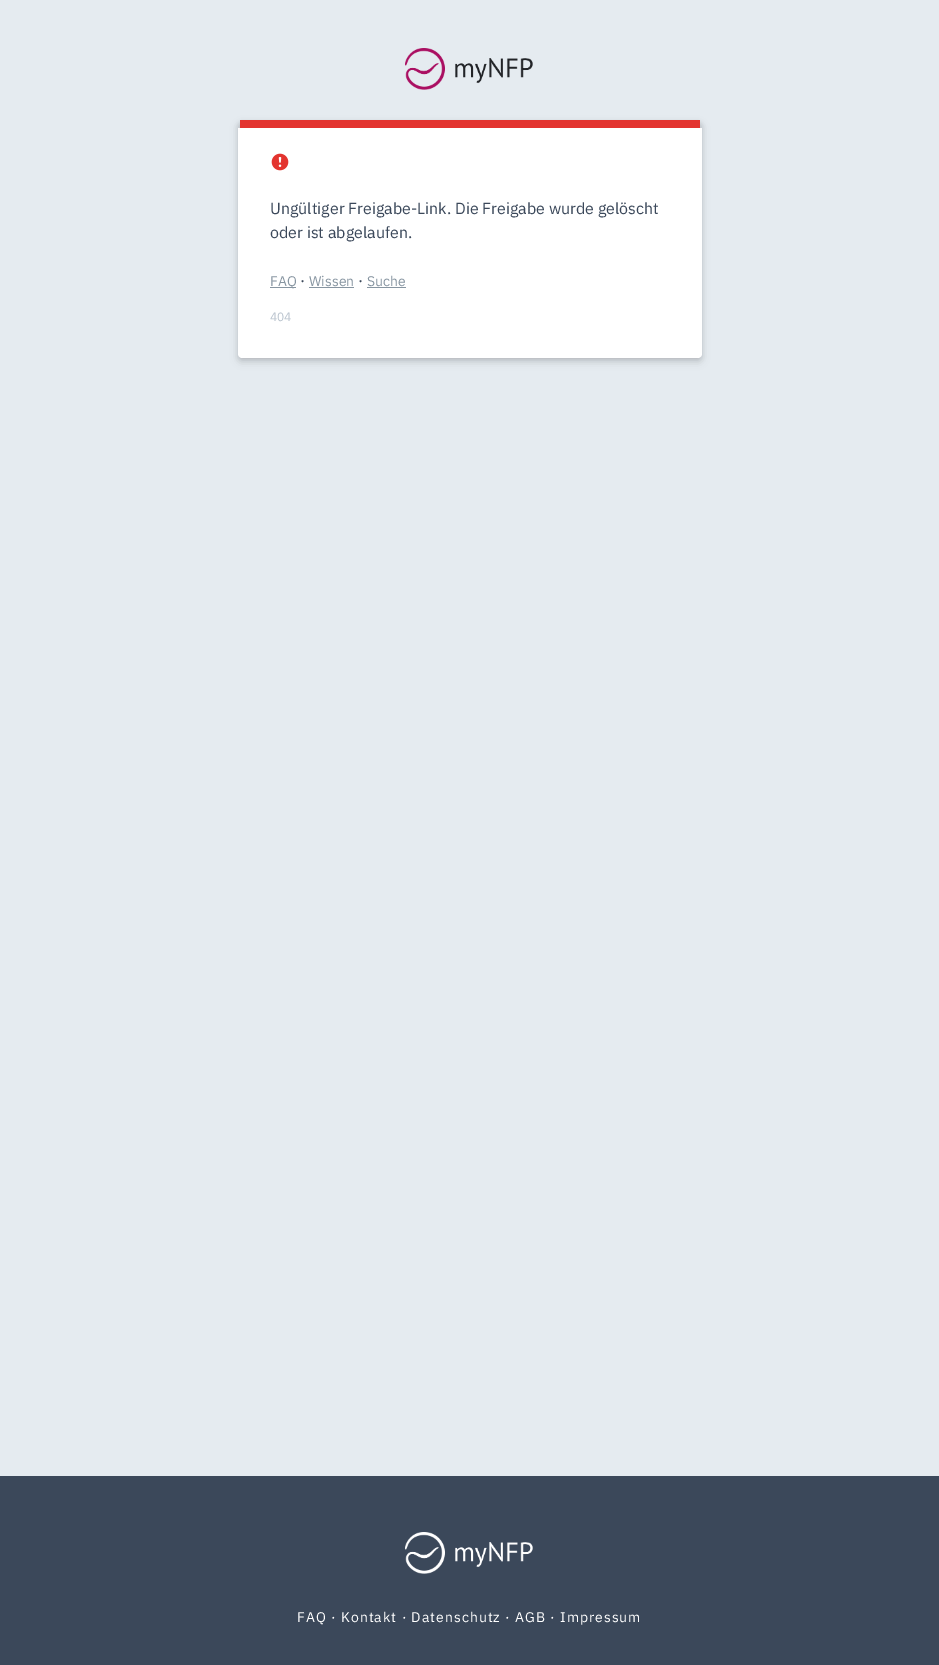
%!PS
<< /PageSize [939 1665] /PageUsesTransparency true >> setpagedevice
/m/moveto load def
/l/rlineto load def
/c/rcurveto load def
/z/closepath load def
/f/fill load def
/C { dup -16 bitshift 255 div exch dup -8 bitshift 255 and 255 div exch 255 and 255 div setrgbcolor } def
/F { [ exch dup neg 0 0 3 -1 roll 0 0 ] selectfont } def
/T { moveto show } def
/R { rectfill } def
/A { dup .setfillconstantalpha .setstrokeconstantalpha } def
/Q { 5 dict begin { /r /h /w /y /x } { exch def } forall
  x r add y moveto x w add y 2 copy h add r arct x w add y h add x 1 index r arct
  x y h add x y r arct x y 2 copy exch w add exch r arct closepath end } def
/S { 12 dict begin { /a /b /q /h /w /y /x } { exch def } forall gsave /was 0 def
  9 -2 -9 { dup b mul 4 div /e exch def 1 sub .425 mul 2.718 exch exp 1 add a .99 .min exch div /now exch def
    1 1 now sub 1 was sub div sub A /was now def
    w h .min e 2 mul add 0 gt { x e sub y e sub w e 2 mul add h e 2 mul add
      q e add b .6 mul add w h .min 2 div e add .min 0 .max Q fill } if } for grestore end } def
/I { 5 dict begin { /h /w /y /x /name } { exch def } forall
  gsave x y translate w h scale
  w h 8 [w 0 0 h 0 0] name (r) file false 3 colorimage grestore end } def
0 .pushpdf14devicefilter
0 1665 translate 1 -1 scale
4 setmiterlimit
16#E5EBF0 C
0 0 939 1665 R
(1.rgb) 405 48 128 42 I
16#000000 C
238 122 464 238 4 2 .08 S
238 124 464 238 4 4 .12 S
16#FFFFFF C
242 128 m 460 0 l 0 226 l 0 2 -2 4 -4 4 c -456 0 l -2 0 -4 -2 -4 -4 c 0 -226 l z f
16#E3342F C
240 120 460 8 R
(2.rgb) 271 153 18 18 I
/IBMPlexSans-Regular 16 F
16#3B485A C
(Ungültiger Freigabe-Link. Die Freigabe wurde gelöscht) 270 214 T
(oder ist abgelaufen.) 270 238 T
16#8795A1 C
270 287 26 1 R
/IBMPlexSans-Regular 14 F
(FAQ) 270 286 T
/IBMPlexSans-Regular 16 F
16#3B485A C
(·) 300 286 T
/IBMPlexSans-Regular 14 F
16#8795A1 C
(Wissen) 309 286 T
309 287 45 1 R
/IBMPlexSans-Regular 16 F
16#3B485A C
(·) 358 286 T
/IBMPlexSans-Regular 14 F
16#8795A1 C
(Suche) 367 286 T
367 287 39 1 R
/IBMPlexSans-Regular 12 F
16#B8C2CC C
(404) 270 321 T
16#3B485A C
0 1476 939 189 R
(3.rgb) 405 1532 128 42 I
/IBMPlexSans-Regular 14 F
16#FFFFFF C
297 1622 m 1 0 (FAQ · Kontakt · Datenschutz · AGB · Impressum) ashow
.poppdf14devicefilter showpage
